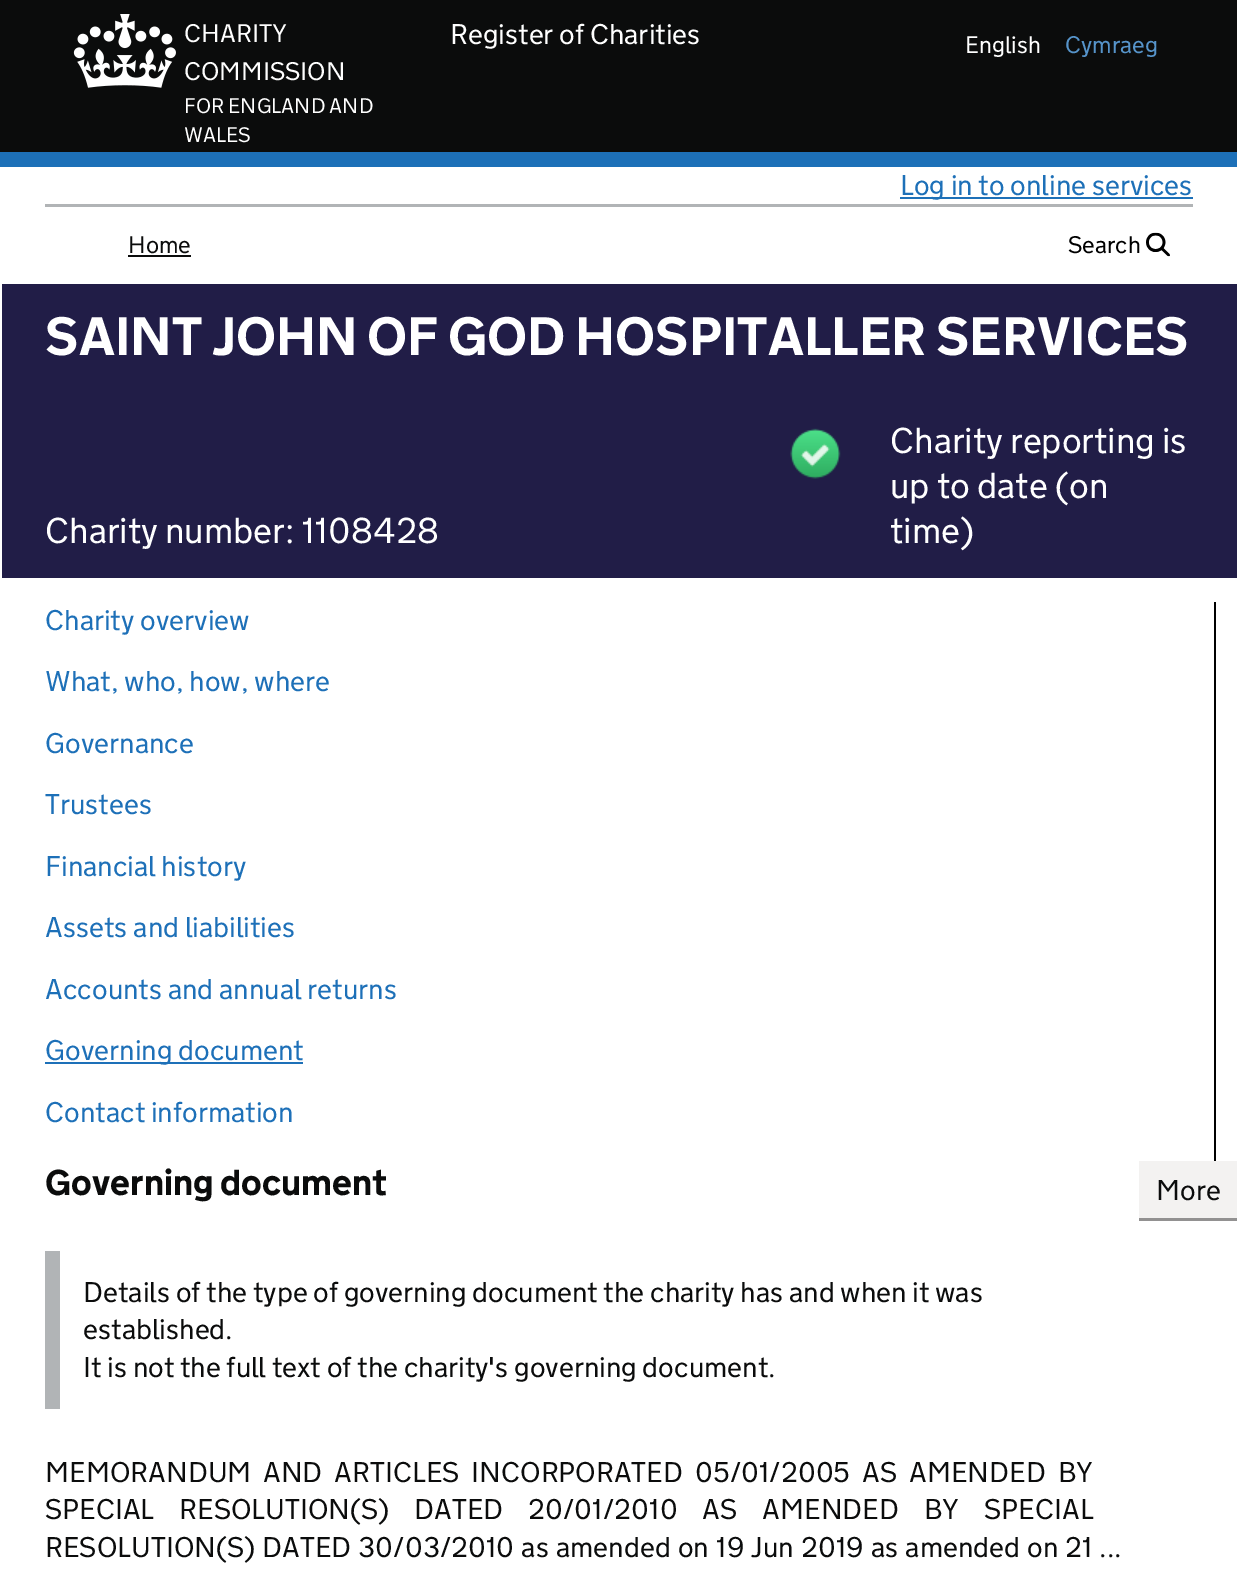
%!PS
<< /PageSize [1237 1586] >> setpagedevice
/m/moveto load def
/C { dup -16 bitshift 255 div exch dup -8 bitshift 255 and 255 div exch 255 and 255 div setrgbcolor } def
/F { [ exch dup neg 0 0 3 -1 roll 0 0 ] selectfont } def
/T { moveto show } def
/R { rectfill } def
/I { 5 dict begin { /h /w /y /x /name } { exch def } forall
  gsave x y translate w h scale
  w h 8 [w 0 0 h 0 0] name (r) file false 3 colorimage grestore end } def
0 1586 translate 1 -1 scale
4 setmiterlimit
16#FFFFFF C
0 0 1237 1586 R
16#0B0C0C C
0 0 1237 152 R
16#1D70B8 C
0 152 1237 15 R
(1.rgb) 73 14 103 74 I
/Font-Light 25.5 F
16#FFFFFF C
(CHARITY) 184 42 T
(COMMISSION) 184 80 T
/Font-Light 21 F
(FOR ENGLAND AND) 184 113 T
(WALES) 184 142 T
/Font-Light 28.5 F
(Register of Charities) 450 44 T
/Font-Light 24 F
(English) 965 53 T
16#5694CA C
(Cymraeg) 1065 53 T
16#B1B4B6 C
45 204 1148 3 R
16#1D70B8 C
900 197 293 2 R
/Font-Light 28.5 F
(Log in to online services) 900 195 T
/Font-Light 24 F
16#0B0C0C C
(Home) 128 253 T
128 255 63 2 R
16#000000 C
(Search) 1068 253 T
(2.rgb) 1146 232 24 25 I
16#211D47 C
2 284 1235 294 R
/Font-Bold 54 F
16#FFFFFF C
(SAINT JOHN OF GOD HOSPITALLER SERVICES) 45 355 T
/Font-Light 36 F
(Charity number: 1108428) 45 543 T
(3.rgb) 790 428 51 51 I
(Charity reporting is) 890 453 T
(up to date \(on) 890 498 T
(time\)) 890 543 T
16#000000 C
1214 602 2 559 R
/Font-Light 28.5 F
16#1D70B8 C
(Charity overview) 45 630 T
(What, who, how, where) 45 691 T
(Governance) 45 753 T
(Trustees) 45 814 T
(Financial history) 45 876 T
(Assets and liabilities) 45 937 T
(Accounts and annual returns) 45 999 T
45 1062 258 2 R
(Governing document) 45 1060 T
(Contact information) 45 1122 T
/Font-Bold 36 F
16#0B0C0C C
(Governing document) 45 1195 T
16#B1B4B6 C
45 1251 15 158 R
/Font-Light 28.5 F
16#0B0C0C C
(Details of the type of governing document the charity has and when it was) 83 1302 T
(established.) 83 1339 T
(It is not the full text of the charity's governing document.) 83 1377 T
(MEMORANDUM) 45 1482 T
263 1482 m 6.25 0 32 (AND ARTICLES INCORPORATED 05/01/2005 AS AMENDED BY) widthshow
45 1519 m 19.25 0 32 (SPECIAL RESOLUTION\(S\) DATED 20/01/2010 AS AMENDED BY SPECIAL) widthshow
45 1557 m 1.4 0 32 (RESOLUTION\(S\) DATED 30/03/2010 as amended on 19 Jun 2019 as amended on 21) widthshow
(...) 1099 1557 T
16#929191 C
1139 1218 98 3 R
16#F3F2F1 C
1139 1161 98 57 R
16#0B0C0C C
(More) 1156 1200 T
showpage
